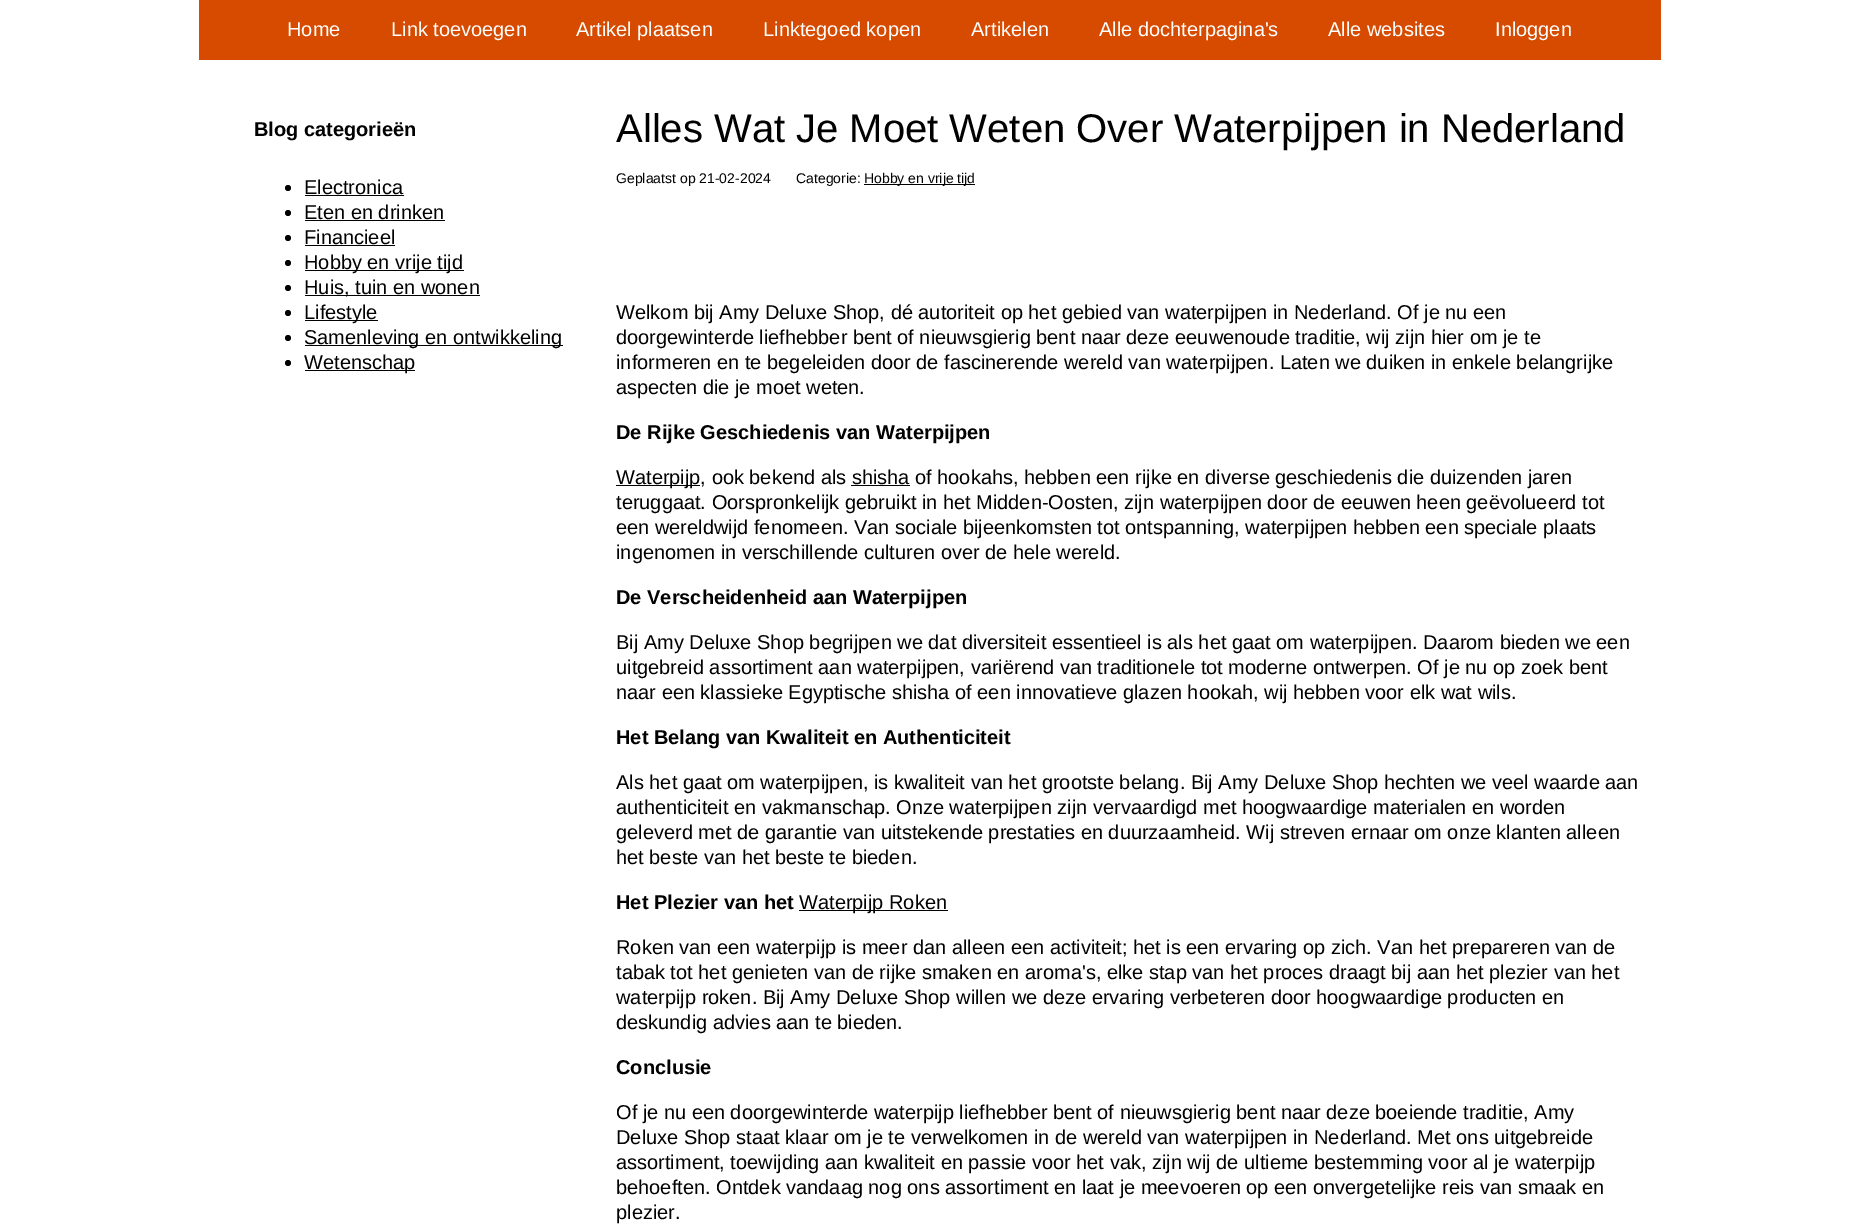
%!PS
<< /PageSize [1858 1229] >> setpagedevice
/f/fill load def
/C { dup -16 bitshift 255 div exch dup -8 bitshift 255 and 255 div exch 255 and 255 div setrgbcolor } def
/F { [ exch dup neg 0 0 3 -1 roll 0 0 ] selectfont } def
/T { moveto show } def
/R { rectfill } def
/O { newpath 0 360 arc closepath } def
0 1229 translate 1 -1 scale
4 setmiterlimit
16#FFFFFF C
0 0 1858 1229 R
16#D64B00 C
199 0 1462 60 R
/LiberationSans-Regular 20 F
16#FFFFFF C
(Home) 287 36 T
(Link toevoegen) 391 36 T
(Artikel plaatsen) 576 36 T
(Linktegoed kopen) 763 36 T
(Artikelen) 971 36 T
(Alle dochterpagina's) 1099 36 T
(Alle websites) 1328 36 T
(Inloggen) 1495 36 T
/LiberationSans-Bold 20 F
16#000000 C
(Blog categorieën) 254 136 T
288 188 3 O f
/LiberationSans-Regular 20 F
(Electronica) 304 194 T
305 195 99 1 R
288 213 3 O f
(Eten en drinken) 304 219 T
305 220 140 1 R
288 238 3 O f
(Financieel) 304 244 T
305 245 90 1 R
288 263 3 O f
305 270 159 1 R
(Hobby en vrije tijd) 304 269 T
288 288 3 O f
305 295 175 1 R
(Huis, tuin en wonen) 304 294 T
288 313 3 O f
305 320 73 1 R
(Lifestyle) 304 319 T
288 338 3 O f
305 345 258 1 R
(Samenleving en ontwikkeling) 304 344 T
288 363 3 O f
305 370 110 1 R
(Wetenschap) 304 369 T
/LiberationSans-Regular 40 F
(Alles Wat Je Moet Weten Over Waterpijpen in Nederland) 616 142 T
/LiberationSans-Regular 14 F
(Geplaatst op 21-02-2024) 616 183 T
(Categorie:) 796 183 T
864 184 111 1 R
(Hobby en vrije tijd) 864 183 T
/LiberationSans-Regular 20 F
(Welkom bij Amy Deluxe Shop, dé autoriteit op het gebied van waterpijpen in Nederland. Of je nu een) 616 319 T
(doorgewinterde liefhebber bent of nieuwsgierig bent naar deze eeuwenoude traditie, wij zijn hier om je te) 616 344 T
(informeren en te begeleiden door de fascinerende wereld van waterpijpen. Laten we duiken in enkele belangrijke) 616 369 T
(aspecten die je moet weten.) 616 394 T
/LiberationSans-Bold 20 F
(De Rijke Geschiedenis van Waterpijpen) 616 439 T
616 485 84 1 R
/LiberationSans-Regular 20 F
(Waterpijp, ook bekend als shisha of hookahs, hebben een rijke en diverse geschiedenis die duizenden jaren) 616 484 T
851 485 59 1 R
(teruggaat. Oorspronkelijk gebruikt in het Midden-Oosten, zijn waterpijpen door de eeuwen heen geëvolueerd tot) 616 509 T
(een wereldwijd fenomeen. Van sociale bijeenkomsten tot ontspanning, waterpijpen hebben een speciale plaats) 616 534 T
(ingenomen in verschillende culturen over de hele wereld.) 616 559 T
/LiberationSans-Bold 20 F
(De Verscheidenheid aan Waterpijpen) 616 604 T
/LiberationSans-Regular 20 F
(Bij Amy Deluxe Shop begrijpen we dat diversiteit essentieel is als het gaat om waterpijpen. Daarom bieden we een) 616 649 T
(uitgebreid assortiment aan waterpijpen, variërend van traditionele tot moderne ontwerpen. Of je nu op zoek bent) 616 674 T
(naar een klassieke Egyptische shisha of een innovatieve glazen hookah, wij hebben voor elk wat wils.) 616 699 T
/LiberationSans-Bold 20 F
(Het Belang van Kwaliteit en Authenticiteit) 616 744 T
/LiberationSans-Regular 20 F
(Als het gaat om waterpijpen, is kwaliteit van het grootste belang. Bij Amy Deluxe Shop hechten we veel waarde aan) 616 789 T
(authenticiteit en vakmanschap. Onze waterpijpen zijn vervaardigd met hoogwaardige materialen en worden) 616 814 T
(geleverd met de garantie van uitstekende prestaties en duurzaamheid. Wij streven ernaar om onze klanten alleen) 616 839 T
(het beste van het beste te bieden.) 616 864 T
/LiberationSans-Bold 20 F
(Het Plezier van het) 616 909 T
799 910 149 1 R
/LiberationSans-Regular 20 F
(Waterpijp Roken) 799 909 T
(Roken van een waterpijp is meer dan alleen een activiteit; het is een ervaring op zich. Van het prepareren van de) 616 954 T
(tabak tot het genieten van de rijke smaken en aroma's, elke stap van het proces draagt bij aan het plezier van het) 616 979 T
(waterpijp roken. Bij Amy Deluxe Shop willen we deze ervaring verbeteren door hoogwaardige producten en) 616 1004 T
(deskundig advies aan te bieden.) 616 1029 T
/LiberationSans-Bold 20 F
(Conclusie) 616 1074 T
/LiberationSans-Regular 20 F
(Of je nu een doorgewinterde waterpijp liefhebber bent of nieuwsgierig bent naar deze boeiende traditie, Amy) 616 1119 T
(Deluxe Shop staat klaar om je te verwelkomen in de wereld van waterpijpen in Nederland. Met ons uitgebreide) 616 1144 T
(assortiment, toewijding aan kwaliteit en passie voor het vak, zijn wij de ultieme bestemming voor al je waterpijp) 616 1169 T
(behoeften. Ontdek vandaag nog ons assortiment en laat je meevoeren op een onvergetelijke reis van smaak en) 616 1194 T
(plezier.) 616 1219 T
showpage
